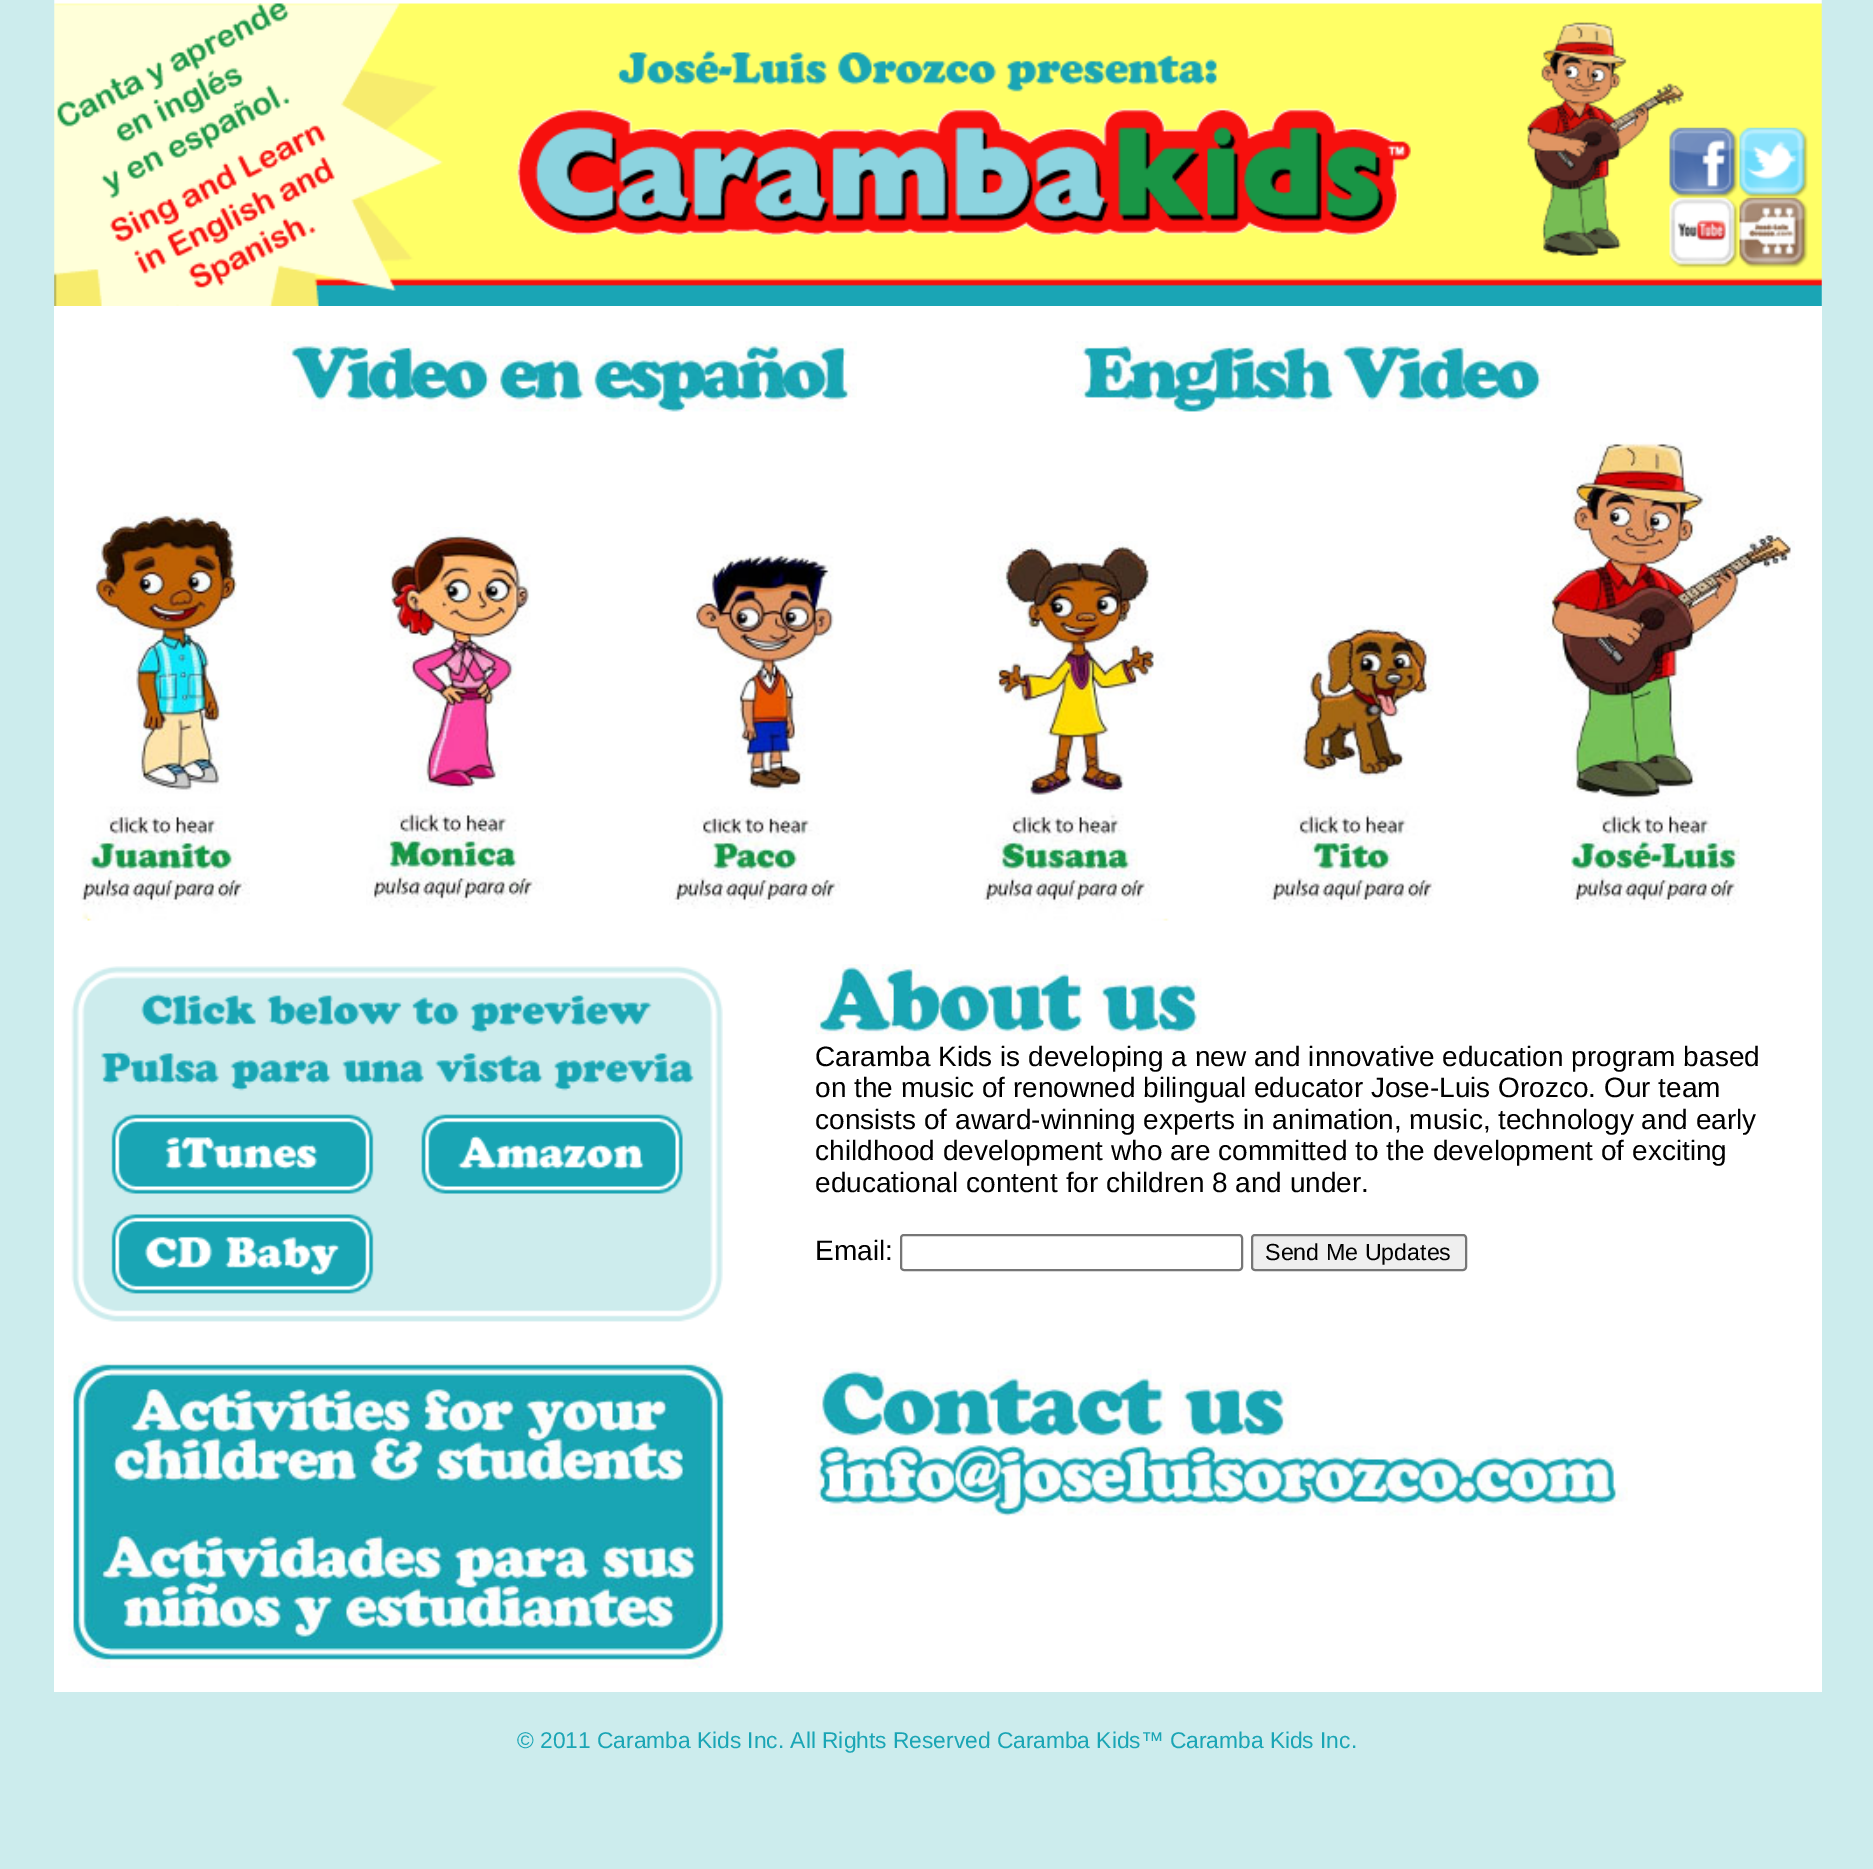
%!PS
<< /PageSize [1873 1869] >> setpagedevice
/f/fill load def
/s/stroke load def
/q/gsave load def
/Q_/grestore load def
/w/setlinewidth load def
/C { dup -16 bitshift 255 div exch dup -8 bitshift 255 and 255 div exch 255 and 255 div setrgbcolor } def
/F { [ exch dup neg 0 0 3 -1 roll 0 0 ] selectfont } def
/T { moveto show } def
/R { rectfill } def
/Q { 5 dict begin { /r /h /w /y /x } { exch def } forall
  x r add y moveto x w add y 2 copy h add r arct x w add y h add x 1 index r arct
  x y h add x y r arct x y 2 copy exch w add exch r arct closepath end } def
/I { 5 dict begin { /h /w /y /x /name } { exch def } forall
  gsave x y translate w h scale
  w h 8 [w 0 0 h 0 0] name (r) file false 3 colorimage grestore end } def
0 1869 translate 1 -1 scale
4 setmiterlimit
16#CCECED C
0 0 1873 1869 R
(1.rgb) 54 0 1768 306 I
(2.rgb) 1669 127 69 71 I
(3.rgb) 1739 127 69 71 I
(4.rgb) 1669 197 69 71 I
(5.rgb) 1739 197 69 71 I
16#FFFFFF C
54 306 1768 1386 R
(6.rgb) 283 341 574 71 I
(7.rgb) 1075 341 476 71 I
(8.rgb) 80 512 170 409 I
(9.rgb) 366 527 178 381 I
(10.rgb) 669 554 172 355 I
(11.rgb) 983 541 186 380 I
(12.rgb) 1265 625 171 282 I
(13.rgb) 1543 442 252 466 I
(14.rgb) 71 966 652 356 I
(15.rgb) 68 1361 659 307 I
(16.rgb) 815 964 387 71 I
/LiberationSans-Regular 28 F
16#000000 C
(Caramba Kids is developing a new and innovative education program based) 815 1066 T
(on the music of renowned bilingual educator Jose-Luis Orozco. Our team) 815 1097 T
(consists of award-winning experts in animation, music, technology and early) 815 1129 T
(childhood development who are committed to the development of exciting) 815 1160 T
(educational content for children 8 and under.) 815 1192 T
(Email:) 815 1260 T
16#767676 C
2 w
901 1235 341 35 3 Q s
16#EFEFEF C
1252 1235 214 35 3 Q q f Q_
16#767676 C
s
/LiberationSans-Regular 23.25 F
16#000000 C
(Send Me Updates) 1265 1260 T
(17.rgb) 815 1368 477 71 I
(18.rgb) 815 1445 813 71 I
/LiberationSans-Regular 22.75 F
16#1AA5B5 C
(© 2011 Caramba Kids Inc. All Rights Reserved Caramba Kids™ Caramba Kids Inc.) 517 1748 T
showpage
